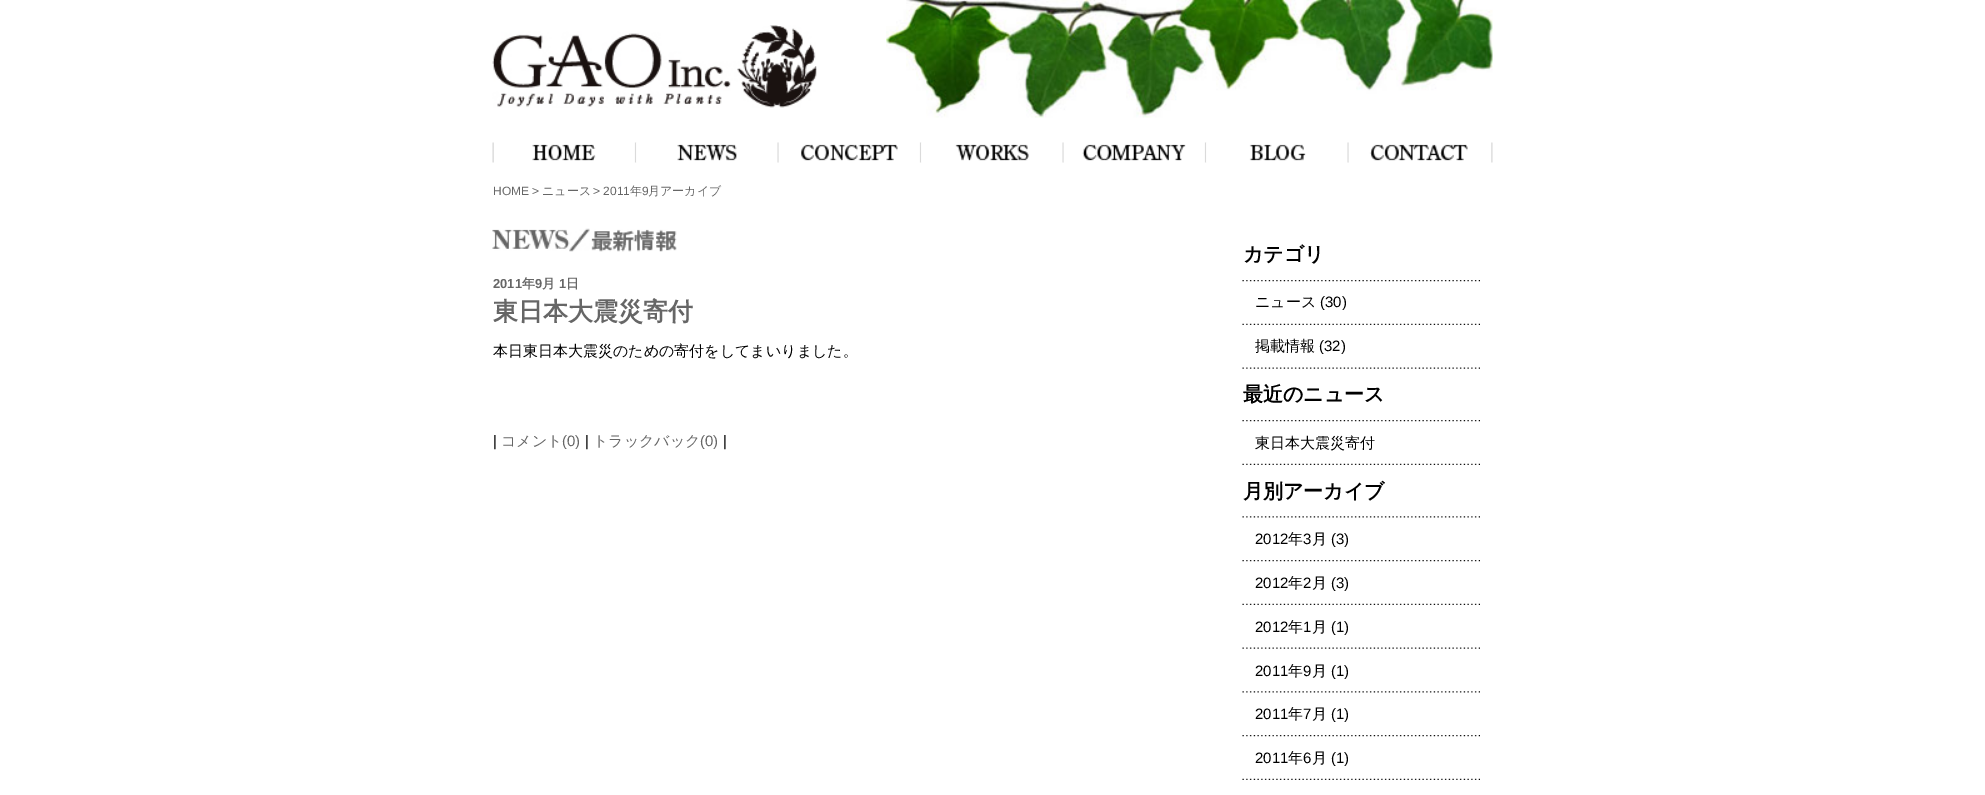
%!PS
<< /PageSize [1985 795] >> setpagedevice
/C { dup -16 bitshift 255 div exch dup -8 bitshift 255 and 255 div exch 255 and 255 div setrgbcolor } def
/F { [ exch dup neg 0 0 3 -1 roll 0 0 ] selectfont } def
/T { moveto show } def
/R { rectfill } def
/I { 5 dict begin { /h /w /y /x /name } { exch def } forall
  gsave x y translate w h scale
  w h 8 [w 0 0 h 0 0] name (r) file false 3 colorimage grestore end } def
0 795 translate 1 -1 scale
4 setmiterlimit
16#FFFFFF C
0 0 1985 795 R
(1.rgb) 886 0 607 118 I
(2.rgb) 492 25 325 83 I
(3.rgb) 492 142 145 21 I
(4.rgb) 636 142 143 21 I
(5.rgb) 778 142 144 21 I
(6.rgb) 921 142 143 21 I
(7.rgb) 1063 142 144 21 I
(8.rgb) 1206 142 143 21 I
(9.rgb) 1348 142 145 21 I
/LiberationSans-Regular 12 F
16#666666 C
(HOME >) 493 195 T
/WenQuanYiZenHei-Medium 12 F
(ニュース) 542 195 T
/LiberationSans-Regular 12 F
(> 2011) 593 195 T
/WenQuanYiZenHei-Medium 12 F
(年) 630 195 T
/LiberationSans-Regular 12 F
(9) 642 195 T
/WenQuanYiZenHei-Medium 12 F
(月アーカイブ) 648 195 T
(10.rgb) 492 228 185 24 I
/LiberationSans-Bold 13 F
(2011) 493 288 T
/WenQuanYiZenHei-Bold 13 F
(年) 522 288 T
/LiberationSans-Bold 13 F
(9) 535 288 T
/WenQuanYiZenHei-Bold 13 F
(月) 542 288 T
/LiberationSans-Bold 13 F
(1) 559 288 T
/WenQuanYiZenHei-Bold 13 F
(日) 566 288 T
/WenQuanYiZenHei-Bold 25 F
(東日本大震災寄付) 493 320 T
/WenQuanYiZenHei-Medium 15 F
16#000000 C
(本日東日本大震災のための寄付をしてまいりました。) 493 356 T
/LiberationSans-Regular 15 F
(|) 493 446 T
/WenQuanYiZenHei-Medium 15 F
16#666666 C
(コメント) 501 446 T
/LiberationSans-Regular 15 F
(\(0\)) 562 446 T
16#000000 C
(|) 585 446 T
/WenQuanYiZenHei-Medium 15 F
16#666666 C
(トラックバック) 593 446 T
/LiberationSans-Regular 15 F
(\(0\)) 700 446 T
16#000000 C
(|) 723 446 T
(11.rgb) 1242 280 238 2 I
/WenQuanYiZenHei-Bold 20 F
(カテゴリ) 1243 261 T
(12.rgb) 1242 323 238 2 I
/WenQuanYiZenHei-Medium 15 F
(ニュース) 1255 307 T
/LiberationSans-Regular 15 F
(\(30\)) 1320 307 T
(13.rgb) 1242 367 238 2 I
/WenQuanYiZenHei-Medium 15 F
(掲載情報) 1255 351 T
/LiberationSans-Regular 15 F
(\(32\)) 1319 351 T
(11.rgb) 1242 420 238 2 I
/WenQuanYiZenHei-Bold 20 F
(最近のニュース) 1243 401 T
(12.rgb) 1242 463 238 2 I
/WenQuanYiZenHei-Medium 15 F
(東日本大震災寄付) 1255 448 T
(14.rgb) 1242 516 238 2 I
/WenQuanYiZenHei-Bold 20 F
(月別アーカイブ) 1243 498 T
(11.rgb) 1242 560 238 2 I
/LiberationSans-Regular 15 F
(2012) 1255 544 T
/WenQuanYiZenHei-Medium 15 F
(年) 1288 544 T
/LiberationSans-Regular 15 F
(3) 1303 544 T
/WenQuanYiZenHei-Medium 15 F
(月) 1312 544 T
/LiberationSans-Regular 15 F
(\(3\)) 1331 544 T
(12.rgb) 1242 603 238 2 I
(2012) 1255 588 T
/WenQuanYiZenHei-Medium 15 F
(年) 1288 588 T
/LiberationSans-Regular 15 F
(2) 1303 588 T
/WenQuanYiZenHei-Medium 15 F
(月) 1312 588 T
/LiberationSans-Regular 15 F
(\(3\)) 1331 588 T
(13.rgb) 1242 647 238 2 I
(2012) 1255 632 T
/WenQuanYiZenHei-Medium 15 F
(年) 1288 632 T
/LiberationSans-Regular 15 F
(1) 1303 632 T
/WenQuanYiZenHei-Medium 15 F
(月) 1312 632 T
/LiberationSans-Regular 15 F
(\(1\)) 1331 632 T
(14.rgb) 1242 691 238 2 I
(2011) 1255 676 T
/WenQuanYiZenHei-Medium 15 F
(年) 1288 676 T
/LiberationSans-Regular 15 F
(9) 1303 676 T
/WenQuanYiZenHei-Medium 15 F
(月) 1312 676 T
/LiberationSans-Regular 15 F
(\(1\)) 1331 676 T
(11.rgb) 1242 735 238 2 I
(2011) 1255 719 T
/WenQuanYiZenHei-Medium 15 F
(年) 1288 719 T
/LiberationSans-Regular 15 F
(7) 1303 719 T
/WenQuanYiZenHei-Medium 15 F
(月) 1312 719 T
/LiberationSans-Regular 15 F
(\(1\)) 1331 719 T
(12.rgb) 1242 778 238 2 I
(2011) 1255 763 T
/WenQuanYiZenHei-Medium 15 F
(年) 1288 763 T
/LiberationSans-Regular 15 F
(6) 1303 763 T
/WenQuanYiZenHei-Medium 15 F
(月) 1312 763 T
/LiberationSans-Regular 15 F
(\(1\)) 1331 763 T
showpage
